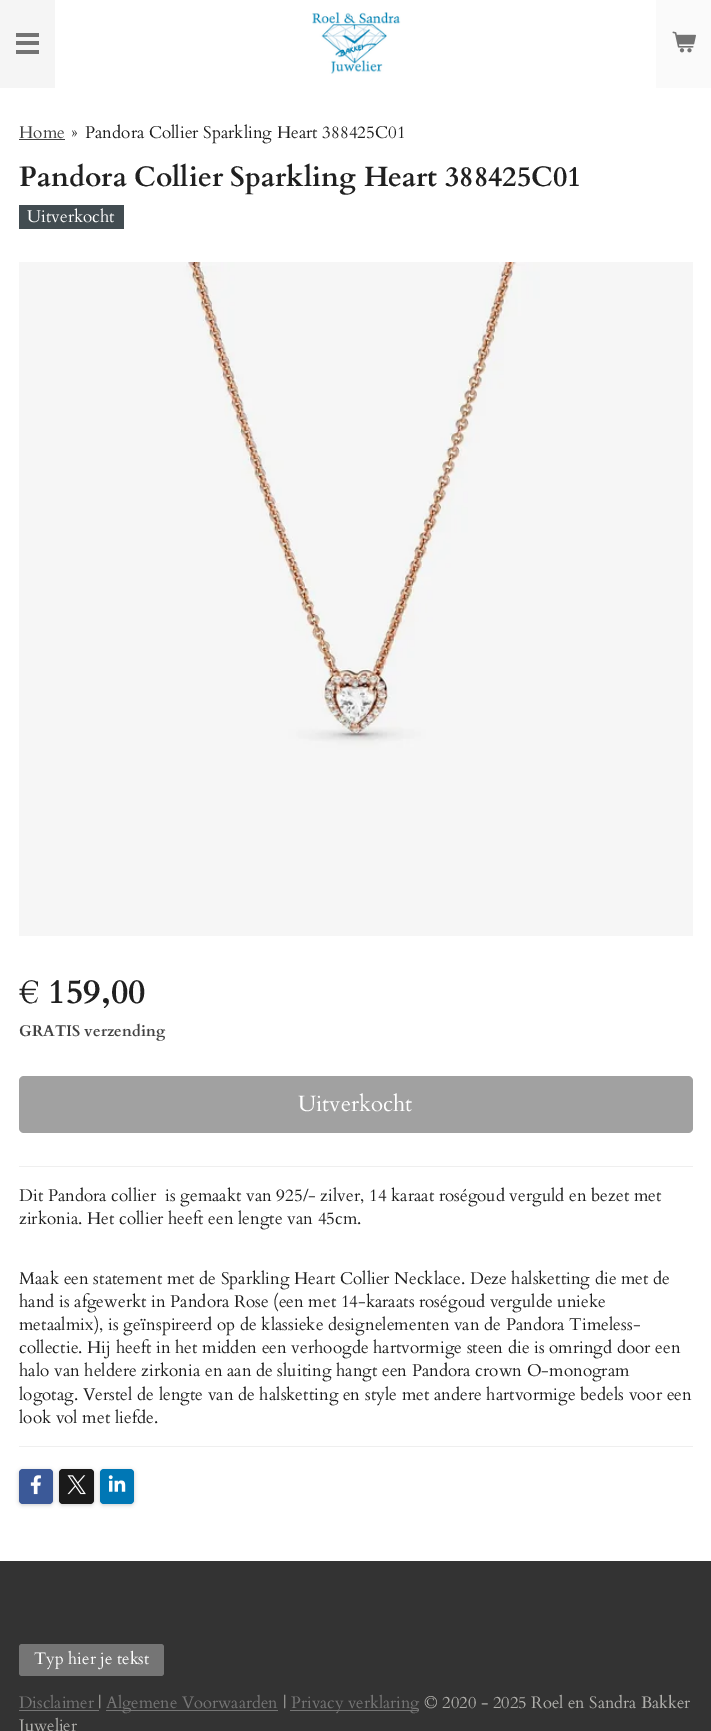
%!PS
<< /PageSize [711 1731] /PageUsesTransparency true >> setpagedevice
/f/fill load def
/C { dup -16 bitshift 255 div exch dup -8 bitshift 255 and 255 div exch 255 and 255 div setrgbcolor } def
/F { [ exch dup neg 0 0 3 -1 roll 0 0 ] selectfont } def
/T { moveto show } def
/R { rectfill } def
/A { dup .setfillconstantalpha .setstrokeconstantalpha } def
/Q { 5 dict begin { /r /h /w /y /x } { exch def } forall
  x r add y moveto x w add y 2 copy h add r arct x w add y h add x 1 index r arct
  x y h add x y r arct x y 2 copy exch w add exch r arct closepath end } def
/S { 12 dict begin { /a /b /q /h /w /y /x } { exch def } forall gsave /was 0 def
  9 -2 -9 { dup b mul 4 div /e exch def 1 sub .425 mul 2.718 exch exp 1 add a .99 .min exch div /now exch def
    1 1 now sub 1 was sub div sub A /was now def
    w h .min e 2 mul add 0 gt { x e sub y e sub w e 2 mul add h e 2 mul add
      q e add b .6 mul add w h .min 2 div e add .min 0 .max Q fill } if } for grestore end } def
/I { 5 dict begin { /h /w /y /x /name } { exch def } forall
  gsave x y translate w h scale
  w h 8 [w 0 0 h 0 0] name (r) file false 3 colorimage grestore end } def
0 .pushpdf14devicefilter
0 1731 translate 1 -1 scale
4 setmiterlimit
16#FFFFFF C
0 0 711 1731 R
16#F5F5F5 C
0 0 55 88 R
16#737373 C
16 41 23 4 R
16 33 23 4 R
16 50 23 4 R
(1.rgb) 312 12 89 62 I
16#FAFAFA C
656 0 55 88 R
(2.rgb) 672 31 24 22 I
/Cardo-Regular 17.1 F
16#424242 C
(Home) 19 138 T
19 139 46 1 R
16#202020 C
(») 71 138 T
(Pandora Collier Sparkling Heart 388425C01) 85 138 T
/Cardo-Bold 28.1 F
(Pandora Collier Sparkling Heart 388425C01) 19 186 T
16#424C51 C
19 205 105 24 R
/Cardo-Regular 17.1 F
16#FFFFFF C
(Uitverkocht) 27 222 T
(3.rgb) 19 262 674 674 I
/Cardo-Bold 34 F
16#202020 C
(€ 159,00) 19 1003 T
/Cardo-Bold 15.5 F
16#424242 C
(GRATIS verzending) 19 1036 T
16#A1A1A1 C
19 1076 674 57 5 Q f
/Cardo-Regular 22.25 F
16#FFFFFF C
(Uitverkocht) 298 1111 T
16#EFEFEF C
19 1166 674 1 R
/Cardo-Regular 17.1 F
16#202020 C
(Dit Pandora collier  is gemaakt van 925/- zilver,) 19 1201 T
(14 karaat roségoud verguld en bezet met) 369 1201 T
(zirkonia. Het collier heeft een lengte van 45cm.) 19 1224 T
(Maak een statement met de Sparkling Heart Collier Necklace. Deze halsketting die met de) 19 1284 T
(hand is afgewerkt in Pandora Rose \(een met 14-karaats roségoud vergulde unieke) 19 1307 T
(metaalmix\), is geïnspireerd op de klassieke designelementen van de Pandora Timeless-) 19 1330 T
(collectie. Hij heeft in het midden een verhoogde hartvormige steen die is omringd door een) 19 1353 T
(halo van heldere zirkonia en aan de sluiting hangt een Pandora crown O-monogram) 19 1376 T
(logotag. Verstel de lengte van de halsketting en style met andere hartvormige bedels voor een) 19 1400 T
(look vol met liefde.) 19 1423 T
16#EFEFEF C
19 1446 674 1 R
16#000000 C
19 1470 34 35 4 2 .2 S
16#3B5998 C
19 1469 34 35 4 Q f
(4.rgb) 30 1475 11 20 I
16#000000 C
59 1470 35 35 4 2 .2 S
16#1A1A1A C
59 1469 35 35 4 Q f
(5.rgb) 67 1475 19 20 I
16#000000 C
100 1470 34 35 4 2 .2 S
16#0077B5 C
100 1469 34 35 4 Q f
(6.rgb) 108 1475 18 17 I
16#333333 C
0 1561 711 170 R
16#757575 C
19 1644 145 32 3 Q f
/Cardo-Regular 16.6 F
16#FFFFFF C
(Typ hier je tekst) 34 1664 T
16#757575 C
(Disclaimer) 19 1708 T
19 1710 80 1 R
16#B1B0AC C
(|) 98 1708 T
16#757575 C
106 1710 172 1 R
(Algemene Voorwaarden) 106 1708 T
16#B1B0AC C
(|) 283 1708 T
16#757575 C
290 1710 129 1 R
(Privacy verklaring) 291 1708 T
16#B1B0AC C
(© 2020 - 2025 Roel en Sandra Bakker) 424 1708 T
(Juwelier) 19 1731 T
.poppdf14devicefilter showpage
